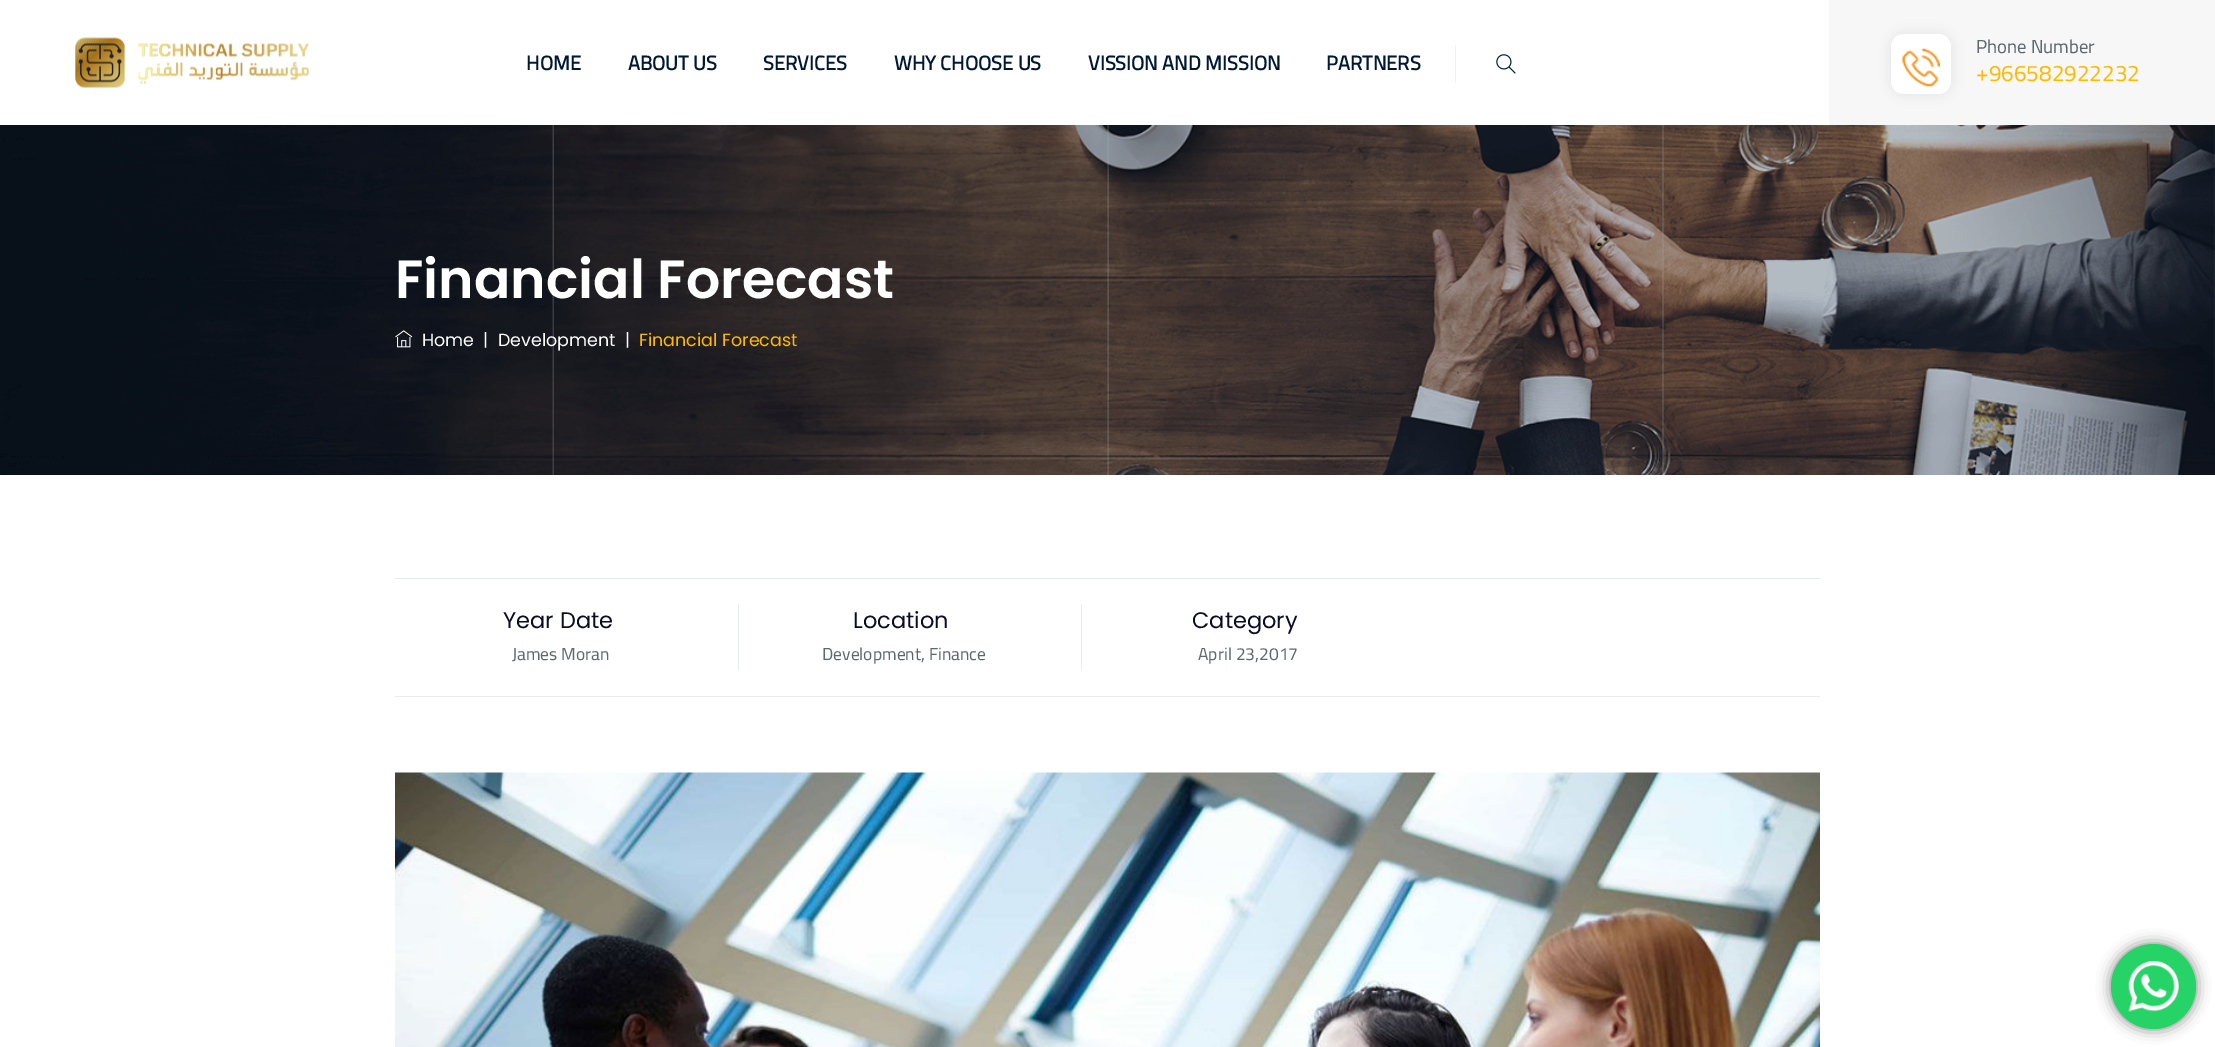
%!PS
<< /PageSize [2215 1047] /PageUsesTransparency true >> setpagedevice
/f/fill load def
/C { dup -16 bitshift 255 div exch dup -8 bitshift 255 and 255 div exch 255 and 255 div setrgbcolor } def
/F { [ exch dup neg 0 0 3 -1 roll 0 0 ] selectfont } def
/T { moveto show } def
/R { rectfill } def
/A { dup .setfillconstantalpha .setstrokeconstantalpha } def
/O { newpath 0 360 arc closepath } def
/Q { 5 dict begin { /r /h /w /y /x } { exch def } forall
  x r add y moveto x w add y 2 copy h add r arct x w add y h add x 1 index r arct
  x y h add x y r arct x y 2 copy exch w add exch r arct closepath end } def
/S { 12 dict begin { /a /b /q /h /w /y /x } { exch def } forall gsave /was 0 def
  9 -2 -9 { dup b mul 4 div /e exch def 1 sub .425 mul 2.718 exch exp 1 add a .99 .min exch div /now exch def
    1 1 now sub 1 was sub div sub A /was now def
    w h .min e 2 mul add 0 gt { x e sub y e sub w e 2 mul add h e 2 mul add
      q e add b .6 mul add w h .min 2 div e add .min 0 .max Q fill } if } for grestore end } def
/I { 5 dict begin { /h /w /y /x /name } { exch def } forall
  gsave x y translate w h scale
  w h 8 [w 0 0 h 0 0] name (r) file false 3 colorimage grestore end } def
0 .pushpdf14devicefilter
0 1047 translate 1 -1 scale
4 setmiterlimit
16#FFFFFF C
0 0 2215 1047 R
(1.rgb) 75 37 234 51 I
/Cairo-Bold 20 F
16#001834 C
(HOME) 526 70 T
(ABOUT US) 628 70 T
(SERVICES) 763 70 T
(WHY CHOOSE US) 894 70 T
(VISSION AND MISSION) 1088 70 T
(PARTNERS) 1326 70 T
16#F0F1F3 C
1455 45 1 38 R
(2.rgb) 1496 54 20 20 I
16#F7F7F7 C
1829 0 386 125 R
16#001834 C
1891 34 60 60 13 6 .08 S
16#FFFFFF C
1891 34 60 60 13 Q f
(3.rgb) 1902 48 38 39 I
/Cairo-Regular 18.75 F
16#5D676C C
(Phone Number) 1976 53 T
/Cairo-Regular 22.5 F
16#FFB901 C
(+966582922232) 1976 81 T
(4.rgb) 0 125 2215 350 I
/Poppins-SemiBold 53.75 F
16#FFFFFF C
(Financial Forecast) 395 298 T
(5.rgb) 395 330 18 18 I
/Poppins-Regular 17.5 F
(Home) 422 346 T
(|) 483 346 T
(Development) 498 346 T
(|) 625 346 T
16#FFB901 C
(Financial Forecast) 639 346 T
16#E8ECEF C
395 578 1425 1 R
395 696 1425 1 R
/Poppins-Regular 22.5 F
16#0B0C26 C
(Year Date) 503 628 T
16#E8ECEF C
738 604 1 66 R
/Cairo-Regular 17.5 F
16#5D676C C
(James Moran) 512 660 T
/Poppins-Regular 22.5 F
16#0B0C26 C
(Location) 853 628 T
16#E8ECEF C
1081 604 1 66 R
/Cairo-Regular 17.5 F
16#5D676C C
(Development, Finance) 822 660 T
/Poppins-Regular 22.5 F
16#0B0C26 C
(Category) 1192 628 T
/Cairo-Regular 17.5 F
16#5D676C C
(April 23,2017) 1198 660 T
(6.rgb) 395 772 1425 275 I
16#000000 C
2111 944 85 85 42.5 7 .5 S
16#25D366 C
2153.5 986.5 42.5 O f
(7.rgb) 2128 961 51 51 I
.poppdf14devicefilter showpage
